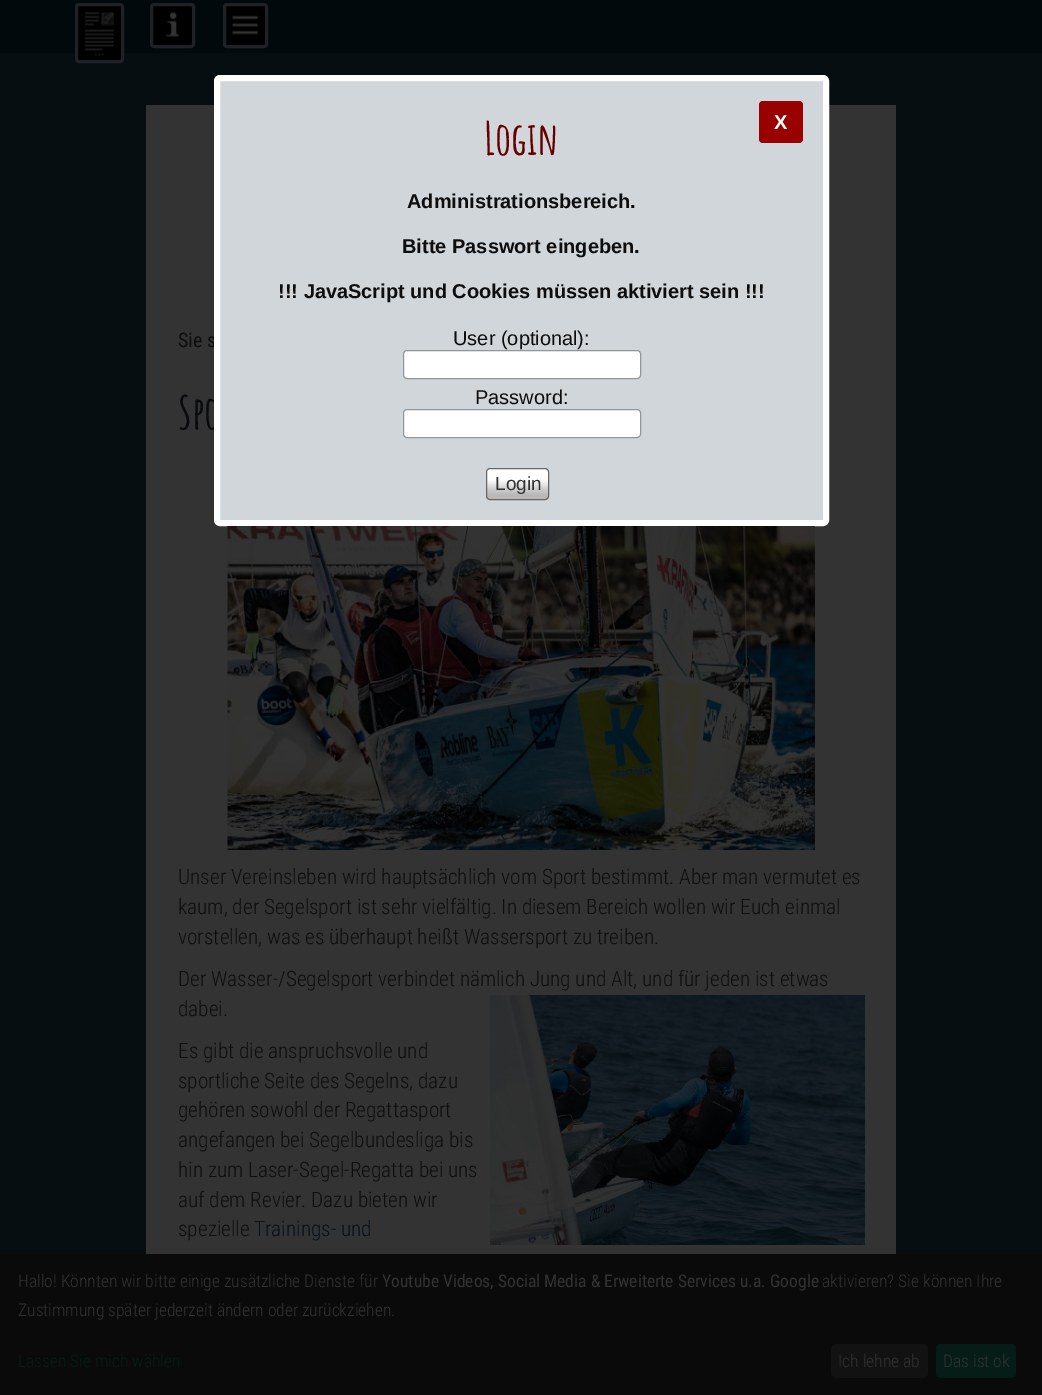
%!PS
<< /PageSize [1042 1395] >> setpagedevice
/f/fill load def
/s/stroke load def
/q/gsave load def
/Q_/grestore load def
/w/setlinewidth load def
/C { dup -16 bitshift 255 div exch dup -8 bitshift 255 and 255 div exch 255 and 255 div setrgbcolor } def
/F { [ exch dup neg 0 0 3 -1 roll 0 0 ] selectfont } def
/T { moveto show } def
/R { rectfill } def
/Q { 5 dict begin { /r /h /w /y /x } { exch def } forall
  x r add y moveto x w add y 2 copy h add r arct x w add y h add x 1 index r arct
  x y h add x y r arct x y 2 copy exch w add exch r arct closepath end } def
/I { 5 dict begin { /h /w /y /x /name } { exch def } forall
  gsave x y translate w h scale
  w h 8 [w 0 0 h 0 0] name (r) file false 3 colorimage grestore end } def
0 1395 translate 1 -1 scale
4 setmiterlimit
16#070E11 C
0 0 1042 1395 R
16#02090C C
0 0 1042 53 R
16#000000 C
76.5 4.5 46 57 2.5 Q q f Q_
16#1F2225 C
3 w
s
(1.rgb) 84 11 30 45 I
16#000000 C
151.5 4.5 42 42 2.5 Q q f Q_
16#1F2225 C
s
(2.rgb) 166 11 13 26 I
16#000000 C
224.5 4.5 42 42 2.5 Q q f Q_
16#1F2225 C
s
(3.rgb) 231 15 28 20 I
16#333333 C
146 105 750 1149 R
/AmaticSC-Bold 45 F
16#070A0E C
(Spo) 178 429 T
/RobotoCondensed-Regular 20 F
16#0E0E0E C
(Sie s) 178 347 T
16#D0D6D9 C
217 78 609 445 3 Q q f Q_
16#FFFFFF C
6 w
s
/AmaticSC-Bold 45 F
16#660000 C
(Login) 484 155 T
16#990000 C
759 101 44 42 4 Q f
/LiberationSans-Bold 20 F
16#FFFFFF C
(X) 774 129 T
16#0E0E0E C
(Administrationsbereich.) 407 208 T
(Bitte Passwort eingeben.) 402 253 T
(!!! JavaScript und Cookies müssen aktiviert sein !!!) 278 298 T
/LiberationSans-Regular 20 F
(User \(optional\):) 453 345 T
16#FFFFFF C
403.5 350.5 237 28 3.5 Q q f Q_
16#909699 C
1 w
s
16#0E0E0E C
(Password:) 475 404 T
16#FFFFFF C
403.5 409.5 237 28 3.5 Q q f Q_
16#909699 C
s
(4.rgb) 486 468 63 32 I
16#666666 C
486.5 468.5 62 31 3.5 Q s
/LiberationSans-Regular 19 F
16#323232 C
(Login) 495 490 T
(5.rgb) 227 526 588 324 I
/RobotoCondensed-Light 21.25 F
16#0E0E0E C
(Unser Vereinsleben wird hauptsächlich vom Sport bestimmt. Aber man vermutet es) 178 884 T
(kaum, der Segelsport ist sehr vielfältig. In diesem Bereich wollen wir Euch einmal) 178 914 T
(vorstellen, was es überhaupt heißt Wassersport zu treiben.) 178 944 T
(Der Wasser-/Segelsport verbindet nämlich Jung und Alt, und für jeden ist etwas) 178 986 T
(dabei.) 178 1016 T
(6.rgb) 490 995 375 250 I
(Es gibt die anspruchsvolle und) 178 1058 T
(sportliche Seite des Segelns, dazu) 178 1088 T
(gehören sowohl der Regattasport) 178 1117 T
(angefangen bei Segelbundesliga bis) 178 1147 T
(hin zum Laser-Segel-Regatta bei uns) 178 1177 T
(auf dem Revier. Dazu bieten wir) 178 1207 T
(spezielle) 178 1236 T
16#07111B C
(Trainings- und) 254 1236 T
16#0A0A0A C
0 1254 1042 141 R
/RobotoCondensed-Light 17.5 F
16#323232 C
(Hallo! Könnten wir bitte einige zusätzliche Dienste für) 18 1287 T
/RobotoCondensed-Regular 17.5 F
(Youtube Videos, Social Media & Erweiterte Services u.a. Google) 382 1287 T
/RobotoCondensed-Light 17.5 F
(aktivieren? Sie können Ihre) 822 1287 T
(Zustimmung später jederzeit ändern oder zurückziehen.) 18 1316 T
16#051D16 C
(Lassen Sie mich wählen) 18 1367 T
16#121212 C
831 1344 97 34 5 Q f
16#323232 C
(Ich lehne ab) 838 1367 T
16#051D16 C
936 1344 80 34 5 Q f
16#323232 C
(Das ist ok) 943 1367 T
showpage
